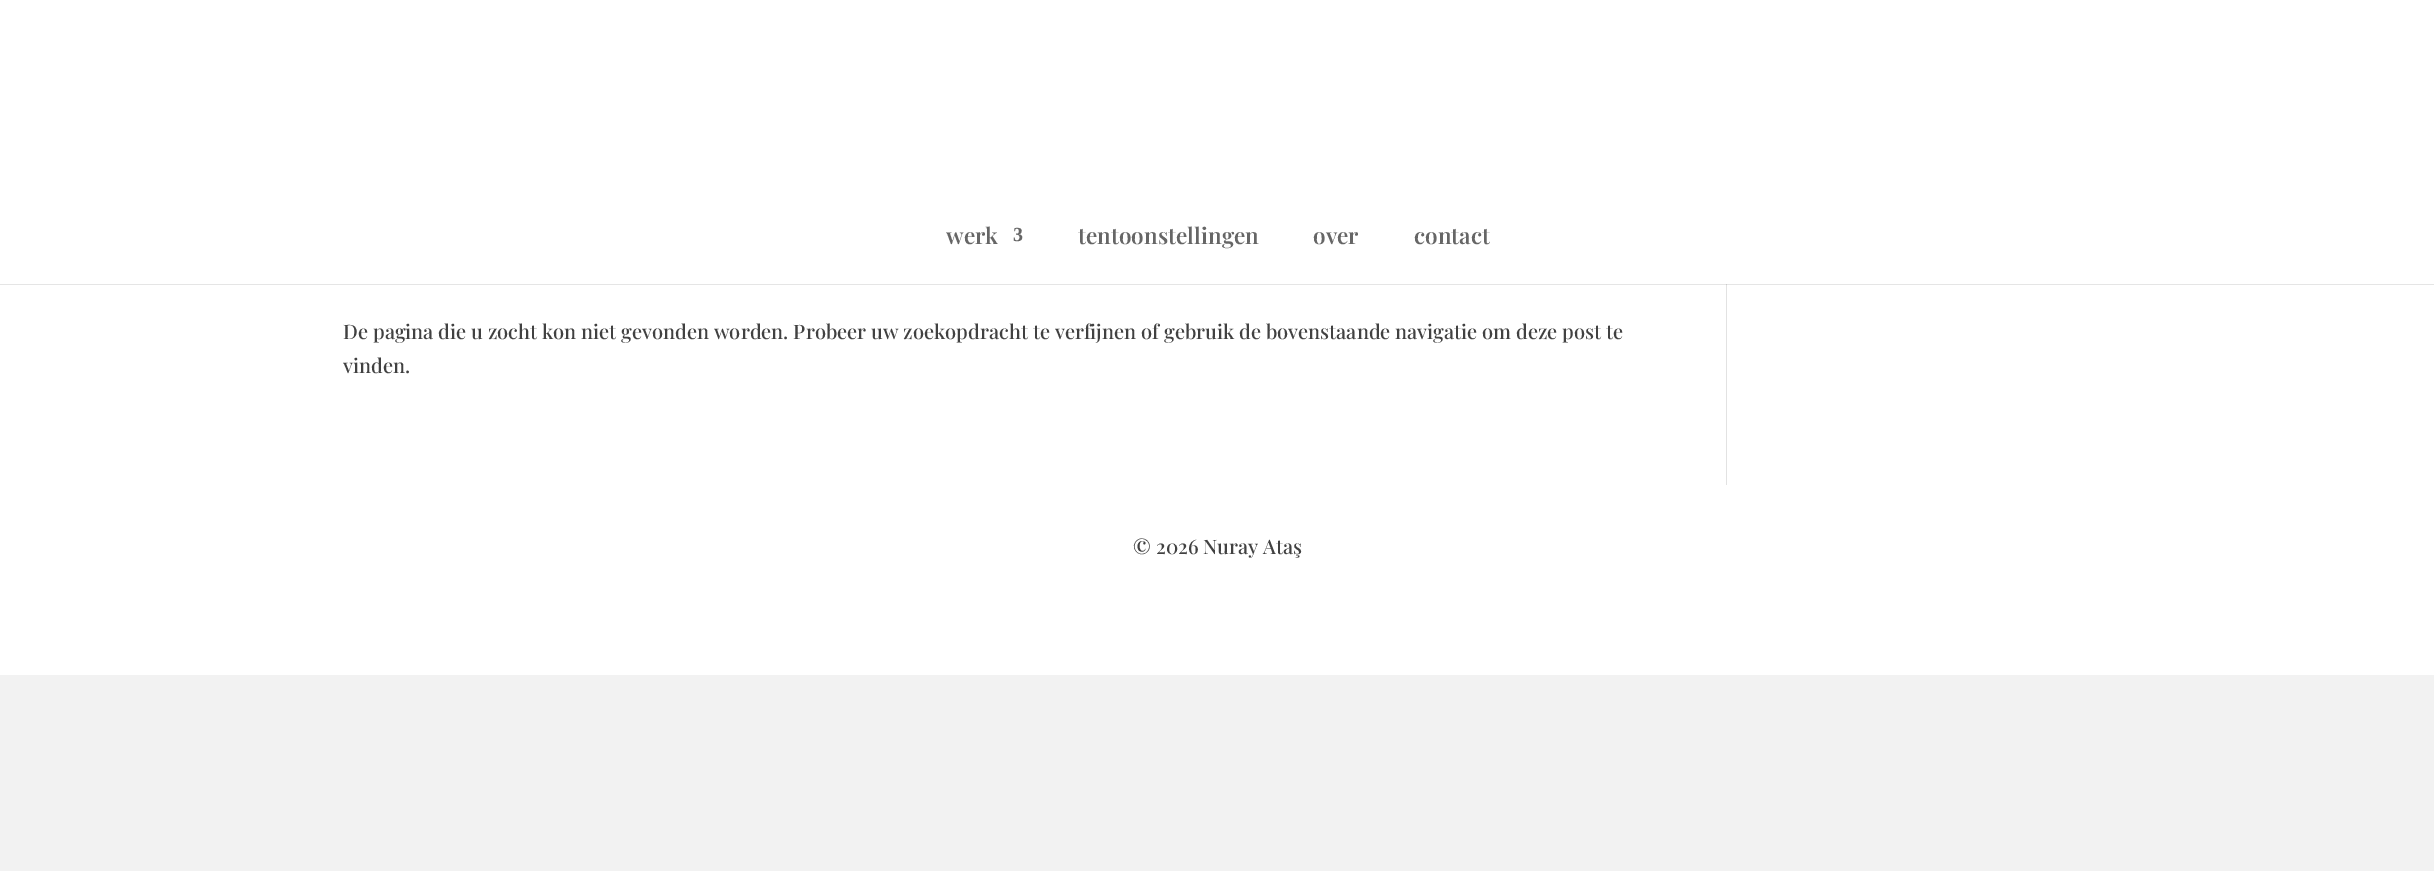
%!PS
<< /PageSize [2434 871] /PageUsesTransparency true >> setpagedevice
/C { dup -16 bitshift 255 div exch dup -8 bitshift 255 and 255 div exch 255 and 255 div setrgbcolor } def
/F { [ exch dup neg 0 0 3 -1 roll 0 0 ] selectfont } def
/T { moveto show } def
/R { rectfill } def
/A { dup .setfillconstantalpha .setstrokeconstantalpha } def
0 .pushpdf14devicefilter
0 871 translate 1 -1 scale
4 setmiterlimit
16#F2F2F2 C
0 0 2434 871 R
16#FFFFFF C
0 0 2434 675 R
16#E2E2E2 C
1726 284 1 201 R
0.1 A
16#000000 C
0 284 2434 1 R
/PlayfairDisplay-SemiBold 22.5 F
1 A
16#666666 C
(werk) 946 244 T
/LiberationSerif-Bold 20 F
(3) 1013 241 T
/PlayfairDisplay-SemiBold 22.5 F
(tentoonstellingen) 1078 244 T
(over) 1313 244 T
(contact) 1414 244 T
/PlayfairDisplay-Medium 20 F
16#414141 C
(De pagina die u zocht kon niet gevonden worden. Probeer uw zoekopdracht te verfijnen of gebruik de bovenstaande navigatie om deze post te) 343 339 T
(vinden.) 343 373 T
(© 2026 Nuray Ataş) 1133 554 T
.poppdf14devicefilter showpage
